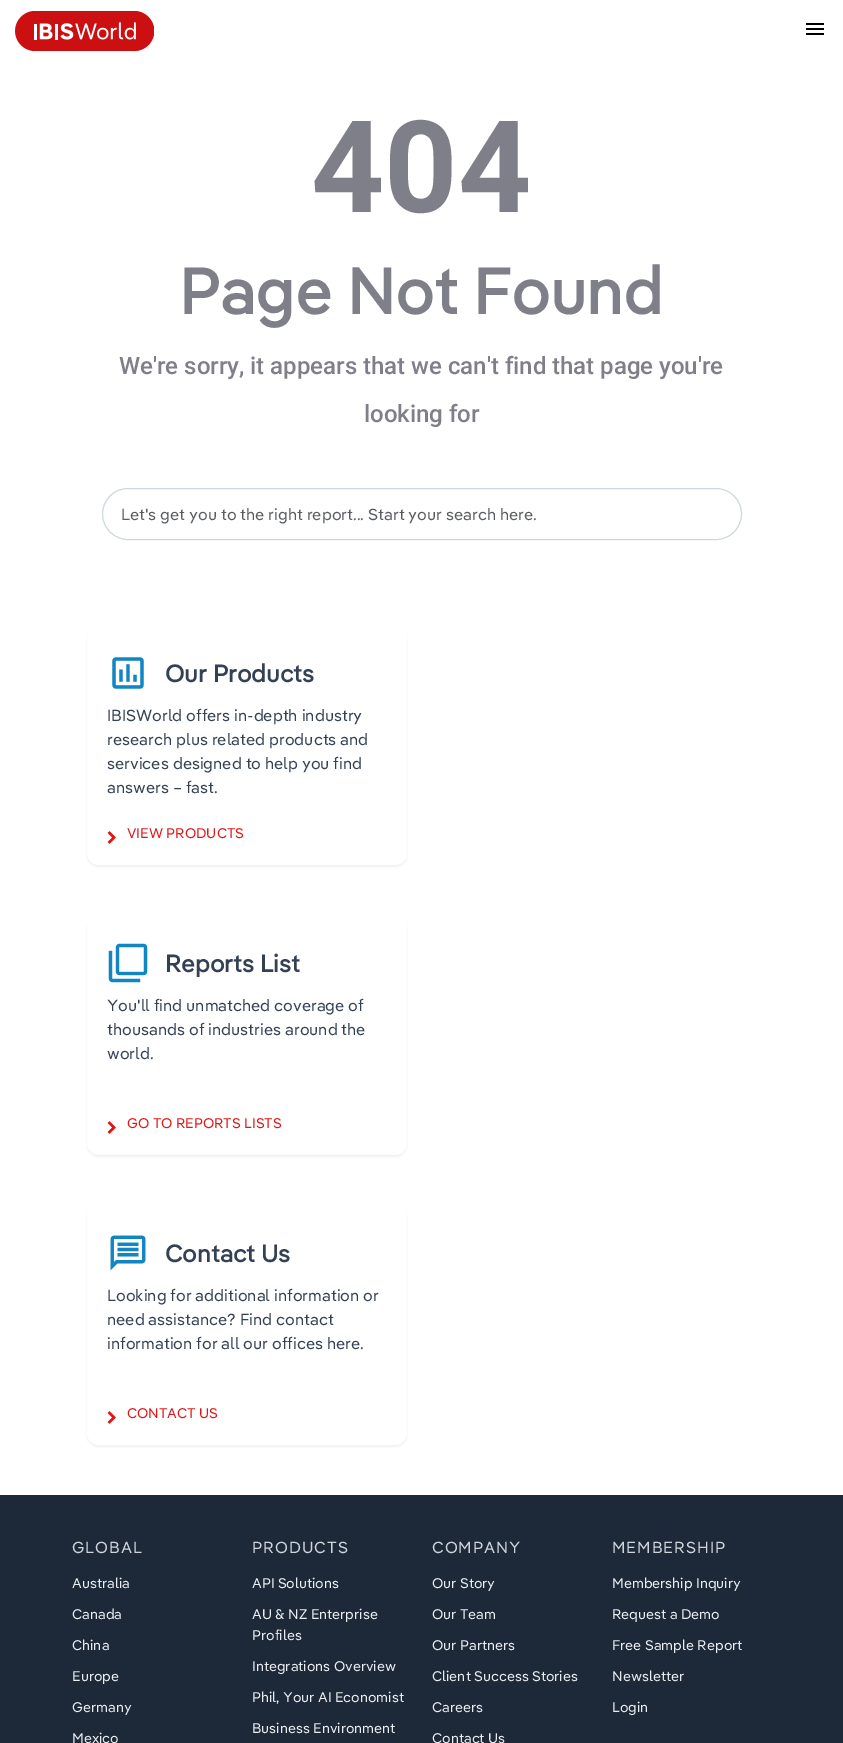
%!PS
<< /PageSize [843 1743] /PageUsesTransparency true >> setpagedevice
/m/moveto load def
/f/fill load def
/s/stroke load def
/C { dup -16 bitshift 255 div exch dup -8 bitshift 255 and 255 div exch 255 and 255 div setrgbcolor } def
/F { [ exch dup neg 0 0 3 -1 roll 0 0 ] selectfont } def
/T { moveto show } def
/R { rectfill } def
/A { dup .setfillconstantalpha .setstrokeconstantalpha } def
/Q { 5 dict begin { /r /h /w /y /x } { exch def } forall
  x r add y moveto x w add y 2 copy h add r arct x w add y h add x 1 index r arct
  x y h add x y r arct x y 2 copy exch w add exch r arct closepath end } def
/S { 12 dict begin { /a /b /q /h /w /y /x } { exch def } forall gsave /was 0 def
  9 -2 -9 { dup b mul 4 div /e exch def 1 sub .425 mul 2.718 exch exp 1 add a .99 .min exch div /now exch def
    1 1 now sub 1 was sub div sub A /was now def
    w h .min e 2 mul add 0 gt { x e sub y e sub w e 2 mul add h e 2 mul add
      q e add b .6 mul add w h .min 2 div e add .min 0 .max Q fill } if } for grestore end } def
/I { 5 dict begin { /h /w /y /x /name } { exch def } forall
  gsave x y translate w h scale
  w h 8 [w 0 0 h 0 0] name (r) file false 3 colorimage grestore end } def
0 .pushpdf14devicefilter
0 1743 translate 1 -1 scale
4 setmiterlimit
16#FFFFFF C
0 0 843 1743 R
(1.rgb) 15 11 139 40 I
16#000000 C
806 23 18 2 R
806 28 18 2 R
806 33 18 2 R
/Roboto-Bold 128 F
16#7F7F89 C
(404) 311 212 T
/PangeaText-Bold 64 F
(Page Not Found) 179 314 T
/Roboto-Medium 24 F
(We're sorry, it appears that we can't find that page you're) 119 374 T
(looking for) 364 422 T
16#CFD8DC C
102.5 488.5 639 51 25.5 Q s
/PangeaText-Regular 16 F
16#595C5F C
(Let's get you to the right report... Start your search here.) 121 520 T
16#BDBDBD C
87 627 320 240 12 1 .2 S
16#FFFFFF C
87 625 320 240 12 Q f
(2.rgb) 112 657 32 32 I
/PangeaText-Bold 24 F
16#344054 C
(Our Products) 165 682 T
/PangeaText-Regular 16 F
(IBISWorld offers in-depth industry) 107 721 T
(research plus related products and) 107 745 T
(services designed to help you find) 107 769 T
(answers – fast.) 107 793 T
(3.rgb) 107 831 9 13 I
/PangeaText-Regular 14 F
16#DF1616 C
(VIEW PRODUCTS) 127 838 T
16#BDBDBD C
87 917 320 240 12 1 .2 S
16#FFFFFF C
87 915 320 240 12 Q f
(4.rgb) 108 943 40 40 I
/PangeaText-Bold 24 F
16#344054 C
(Reports List) 165 972 T
/PangeaText-Regular 16 F
(You'll find unmatched coverage of) 107 1011 T
(thousands of industries around the) 107 1035 T
(world.) 107 1059 T
(3.rgb) 107 1121 9 13 I
/PangeaText-Regular 14 F
16#DF1616 C
(GO TO REPORTS LISTS) 127 1128 T
16#BDBDBD C
87 1207 320 240 12 1 .2 S
16#FFFFFF C
87 1205 320 240 12 Q f
(5.rgb) 110 1235 36 36 I
/PangeaText-Bold 24 F
16#344054 C
(Contact Us) 165 1262 T
/PangeaText-Regular 16 F
(Looking for additional information or) 107 1301 T
(need assistance? Find contact) 107 1325 T
(information for all our offices here.) 107 1349 T
(3.rgb) 107 1411 9 13 I
/PangeaText-Regular 14 F
16#DF1616 C
(CONTACT US) 127 1418 T
16#1D2939 C
0 1495 843 248 R
/PangeaText-Regular 16 F
16#D0D5DD C
72 1553 m 1 0 (GLOBAL) ashow
/PangeaText-Regular 14 F
16#EAECF0 C
(Australia) 72 1588 T
(Canada) 72 1619 T
(China) 72 1650 T
(Europe) 72 1681 T
(Germany) 72 1712 T
(Mexico) 72 1743 T
/PangeaText-Regular 16 F
16#D0D5DD C
252 1553 m 1 0 (PRODUCTS) ashow
/PangeaText-Regular 14 F
16#EAECF0 C
(API Solutions) 252 1588 T
(AU & NZ Enterprise) 252 1619 T
(Profiles) 252 1640 T
(Integrations Overview) 252 1671 T
(Phil, Your AI Economist) 252 1702 T
(Business Environment) 252 1733 T
/PangeaText-Regular 16 F
16#D0D5DD C
432 1553 m 1 0 (COMPANY) ashow
/PangeaText-Regular 14 F
16#EAECF0 C
(Our Story) 432 1588 T
(Our Team) 432 1619 T
(Our Partners) 432 1650 T
(Client Success Stories) 432 1681 T
(Careers) 432 1712 T
(Contact Us) 432 1743 T
/PangeaText-Regular 16 F
16#D0D5DD C
612 1553 m 1 0 (MEMBERSHIP) ashow
/PangeaText-Regular 14 F
16#EAECF0 C
(Membership Inquiry) 612 1588 T
(Request a Demo) 612 1619 T
(Free Sample Report) 612 1650 T
(Newsletter) 612 1681 T
(Login) 612 1712 T
.poppdf14devicefilter showpage
